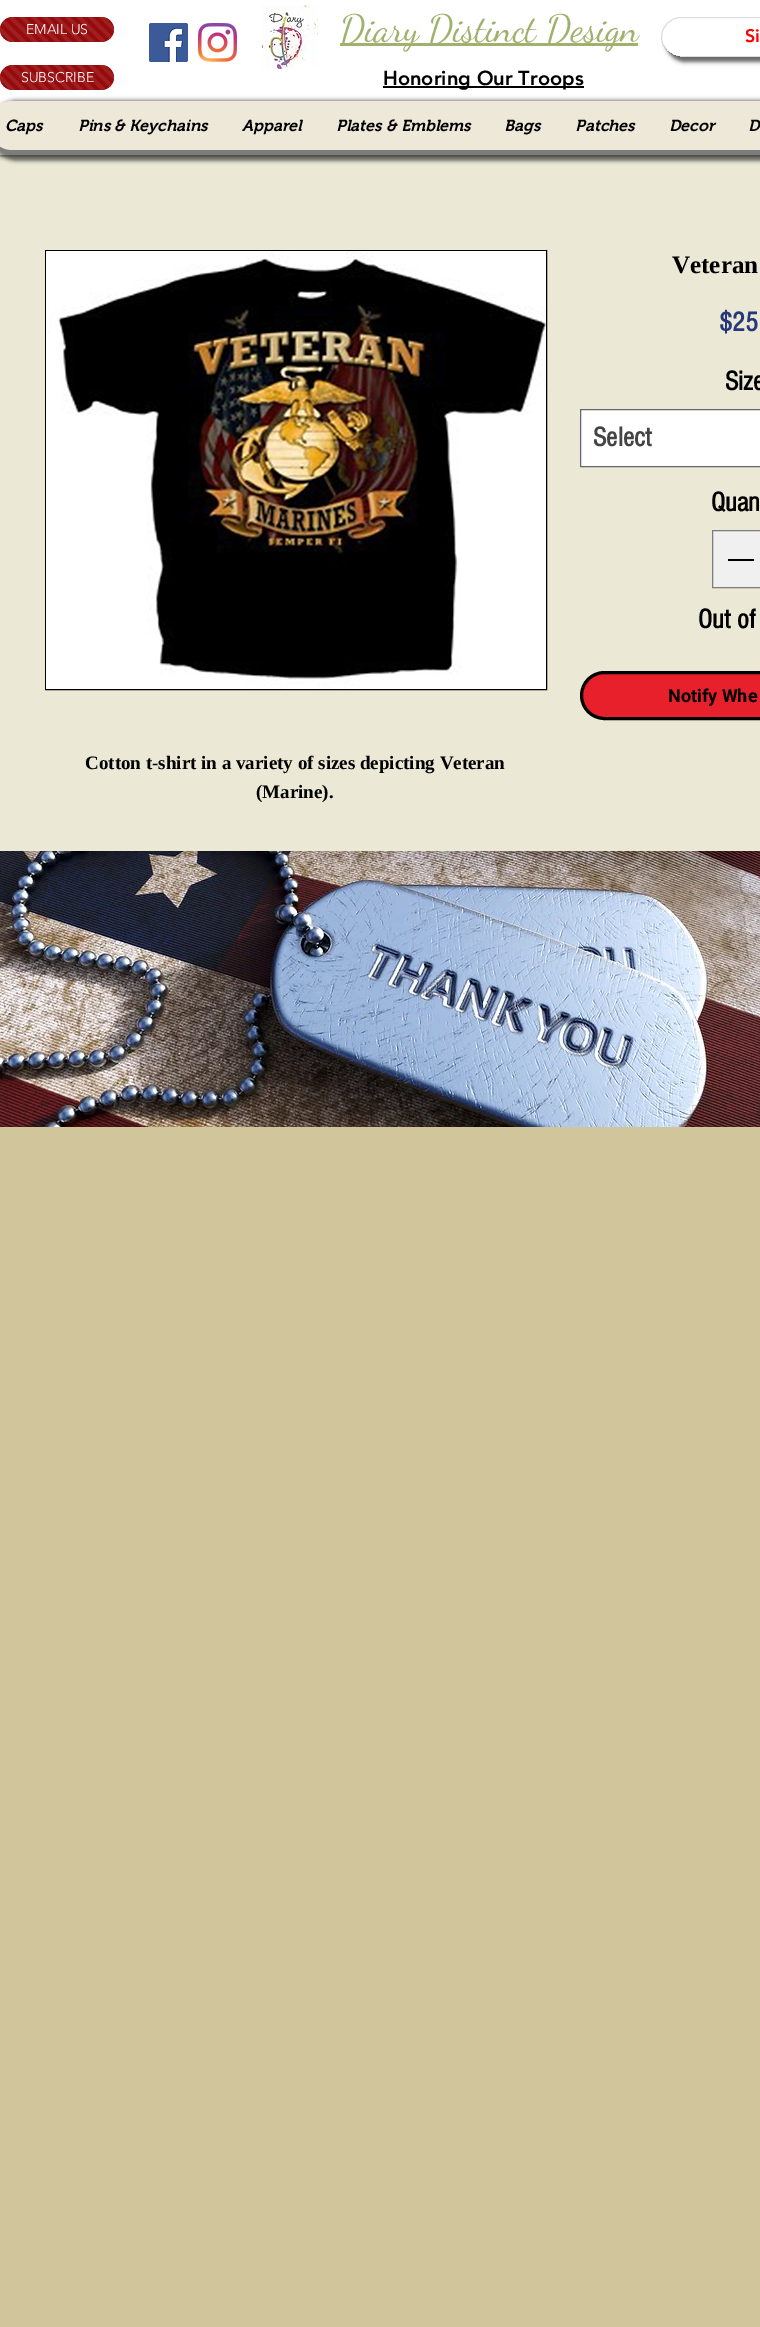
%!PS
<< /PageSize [760 2327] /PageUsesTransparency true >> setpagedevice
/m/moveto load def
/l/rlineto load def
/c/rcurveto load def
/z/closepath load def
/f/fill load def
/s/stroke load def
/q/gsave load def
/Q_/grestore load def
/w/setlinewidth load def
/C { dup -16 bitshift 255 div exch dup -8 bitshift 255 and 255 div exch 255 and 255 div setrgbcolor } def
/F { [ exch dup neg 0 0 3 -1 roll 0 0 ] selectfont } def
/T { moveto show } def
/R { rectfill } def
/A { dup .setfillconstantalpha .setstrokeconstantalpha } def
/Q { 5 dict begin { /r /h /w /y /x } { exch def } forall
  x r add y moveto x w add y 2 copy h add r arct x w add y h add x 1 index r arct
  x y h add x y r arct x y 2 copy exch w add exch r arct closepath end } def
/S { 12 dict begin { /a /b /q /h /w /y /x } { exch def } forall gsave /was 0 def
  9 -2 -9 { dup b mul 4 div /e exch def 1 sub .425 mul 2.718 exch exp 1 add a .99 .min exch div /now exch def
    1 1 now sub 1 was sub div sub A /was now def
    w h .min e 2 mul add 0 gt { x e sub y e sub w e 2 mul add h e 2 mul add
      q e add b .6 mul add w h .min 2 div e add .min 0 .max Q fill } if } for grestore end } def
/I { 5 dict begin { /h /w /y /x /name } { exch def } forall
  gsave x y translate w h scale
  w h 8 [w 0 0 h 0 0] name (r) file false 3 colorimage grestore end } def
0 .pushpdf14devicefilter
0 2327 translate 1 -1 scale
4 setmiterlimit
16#D1C69B C
0 0 760 2327 R
16#EBE8D5 C
0 155 760 696 R
16#000000 C
0 0 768 155 0 2.5 .7 S
16#FFFFFF C
0 0 760 155 R
16#950B0B C
0 17 114 25 12.5 Q f
(1.rgb) 0 17 114 25 I
/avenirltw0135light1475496-Light 14 F
16#FFFFFF C
(EMAIL US) 26 34 T
(2.rgb) 149 23 39 39 I
(3.rgb) 198 23 39 39 I
(4.rgb) 262 5 56 64 I
16#A0B06D C
340 43 298 3 R
/DancingScript-Regular 38 F
(Diary Distinct Design) 340 41 T
q
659 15 m 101 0 l 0 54 l -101 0 l z 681 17 m 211 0 l 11 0 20 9 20 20 c 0 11 -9 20 -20 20 c -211 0 l -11 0 -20 -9 -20 -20 c 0 -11 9 -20 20 -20 c z eoclip newpath
16#000000 C
666 22 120 40 20 2 .6 S
Q_
0.16 A
16#303030 C
661.5 17.5 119 39 19.5 Q s
/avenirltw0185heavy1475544-Black 18 F
1 A
16#FF0000 C
(Si) 745 42 T
16#950B0B C
0 65 114 25 12.5 Q f
(1.rgb) 0 65 114 25 I
/avenirltw0135light1475496-Light 14 F
16#FFFFFF C
(SUBSCRIBE) 21 82 T
16#000000 C
383 86 201 2 R
/avenirltw0185heavy1475544-Black 20 F
(Honoring Our Troops) 383 85 T
-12 100 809 61 30.5 2 .52 S
16#EEE8D8 C
-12 101 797 49 24.5 Q f
/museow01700-SemiBoldItalic 16 F
16#000000 C
(Caps) 5 131 T
(Pins & Keychains) 78 131 T
(Apparel) 242 131 T
(Plates & Emblems) 336 131 T
(Bags) 504 131 T
(Patches) 575 131 T
(Decor) 669 131 T
(D) 748 131 T
/LiberationSerif-Bold 25 F
(Veteran) 672 273 T
/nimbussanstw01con-Bold 28 F
16#273878 C
($25) 719 331 T
16#000000 C
(Size) 725 390 T
16#FFFFFF C
580.5 409.5 m 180 0 l 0 57 l -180 0 l z q f Q_
16#666666 C
s
16#444444 C
(Select) 593 446 T
16#000000 C
(Quan) 711 511 T
16#F0F0F0 C
712.5 530.5 m 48 0 l 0 57 l -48 0 l z q f Q_
16#7D7D7D C
s
16#000000 C
728 559 26 2 R
(Out of) 698 628 T
16#E7202B C
581.5 672.5 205 46 23 Q q f Q_
16#000000 C
3 w
s
/Roboto-Bold 18 F
(Notify Whe) 668 702 T
1 w
45.5 250.5 501 439 rectstroke
(5.rgb) 46 251 500 438 I
/LiberationSerif-Bold 19 F
(Cotton t-shirt in a variety of sizes depicting Veteran) 85 769 T
(\(Marine\).) 256 798 T
(6.rgb) 0 851 760 276 I
.poppdf14devicefilter showpage
